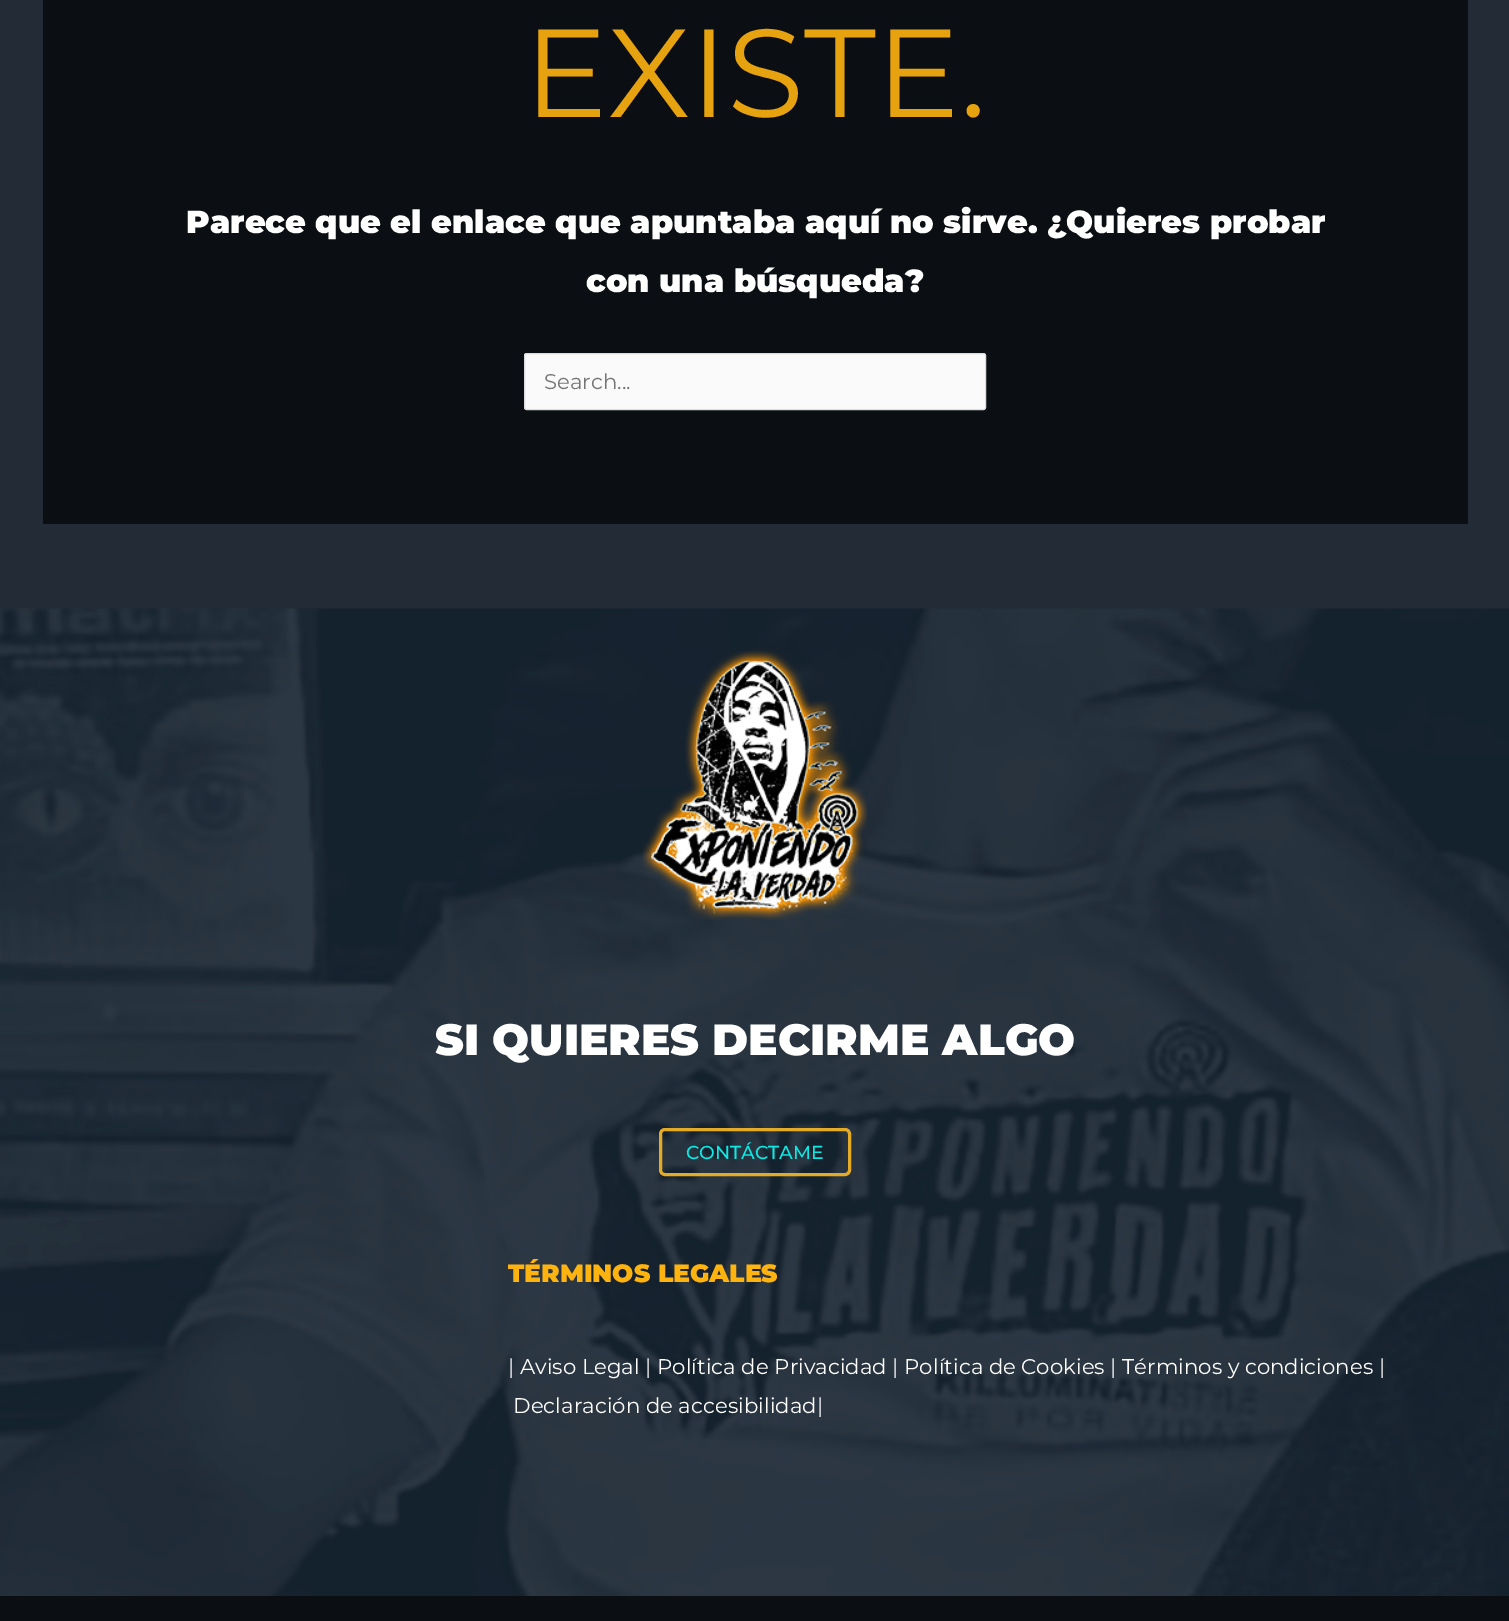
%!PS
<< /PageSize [1509 1621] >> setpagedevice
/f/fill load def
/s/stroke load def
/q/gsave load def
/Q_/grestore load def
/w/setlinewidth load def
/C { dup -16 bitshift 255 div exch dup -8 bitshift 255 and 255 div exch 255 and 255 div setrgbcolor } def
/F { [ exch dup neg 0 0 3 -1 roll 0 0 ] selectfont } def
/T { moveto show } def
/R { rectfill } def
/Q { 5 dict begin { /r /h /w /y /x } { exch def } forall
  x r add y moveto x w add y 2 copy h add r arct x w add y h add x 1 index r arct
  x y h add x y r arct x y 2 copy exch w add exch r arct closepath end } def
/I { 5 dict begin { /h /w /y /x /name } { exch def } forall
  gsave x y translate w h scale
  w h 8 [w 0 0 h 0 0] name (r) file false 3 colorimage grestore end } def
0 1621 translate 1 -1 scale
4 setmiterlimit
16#222B36 C
0 0 1509 1621 R
16#0B0F13 C
43 0 1425 524 R
/Montserrat-Regular 125 F
16#E7A30F C
(EXISTE.) 524 117 T
/Montserrat-Black 31.9 F
16#FFFFFF C
(Parece que el enlace que apuntaba aquí no sirve. ¿Quieres probar) 186 233 T
(con una búsqueda?) 586 292 T
16#FAFAFA C
524.5 353.5 461 56 2 Q q f Q_
16#DDDDDD C
s
/Montserrat-Regular 21.25 F
16#757575 C
(Search...) 544 389 T
(1.rgb) 0 608 1509 988 I
(2.rgb) 642 650 226 270 I
/Montserrat-Black 43.75 F
16#FFFFFF C
(SI QUIERES DECIRME ALGO) 435 1055 T
16#E4AB26 C
3 w
660.5 1129.5 189 45 4.5 Q s
/Montserrat-Medium 18.75 F
16#0DE8E4 C
(CONTÁCTAME) 686 1159 T
/Montserrat-Black 25 F
16#FFB30F C
(TÉRMINOS LEGALES) 508 1282 T
/Montserrat-Regular 21.25 F
16#FFFFFF C
(| Aviso Legal | Política de Privacidad | Política de Cookies | Términos y condiciones |) 508 1374 T
(Declaración de accesibilidad|) 513 1413 T
16#0B0F13 C
0 1596 1509 25 R
showpage
